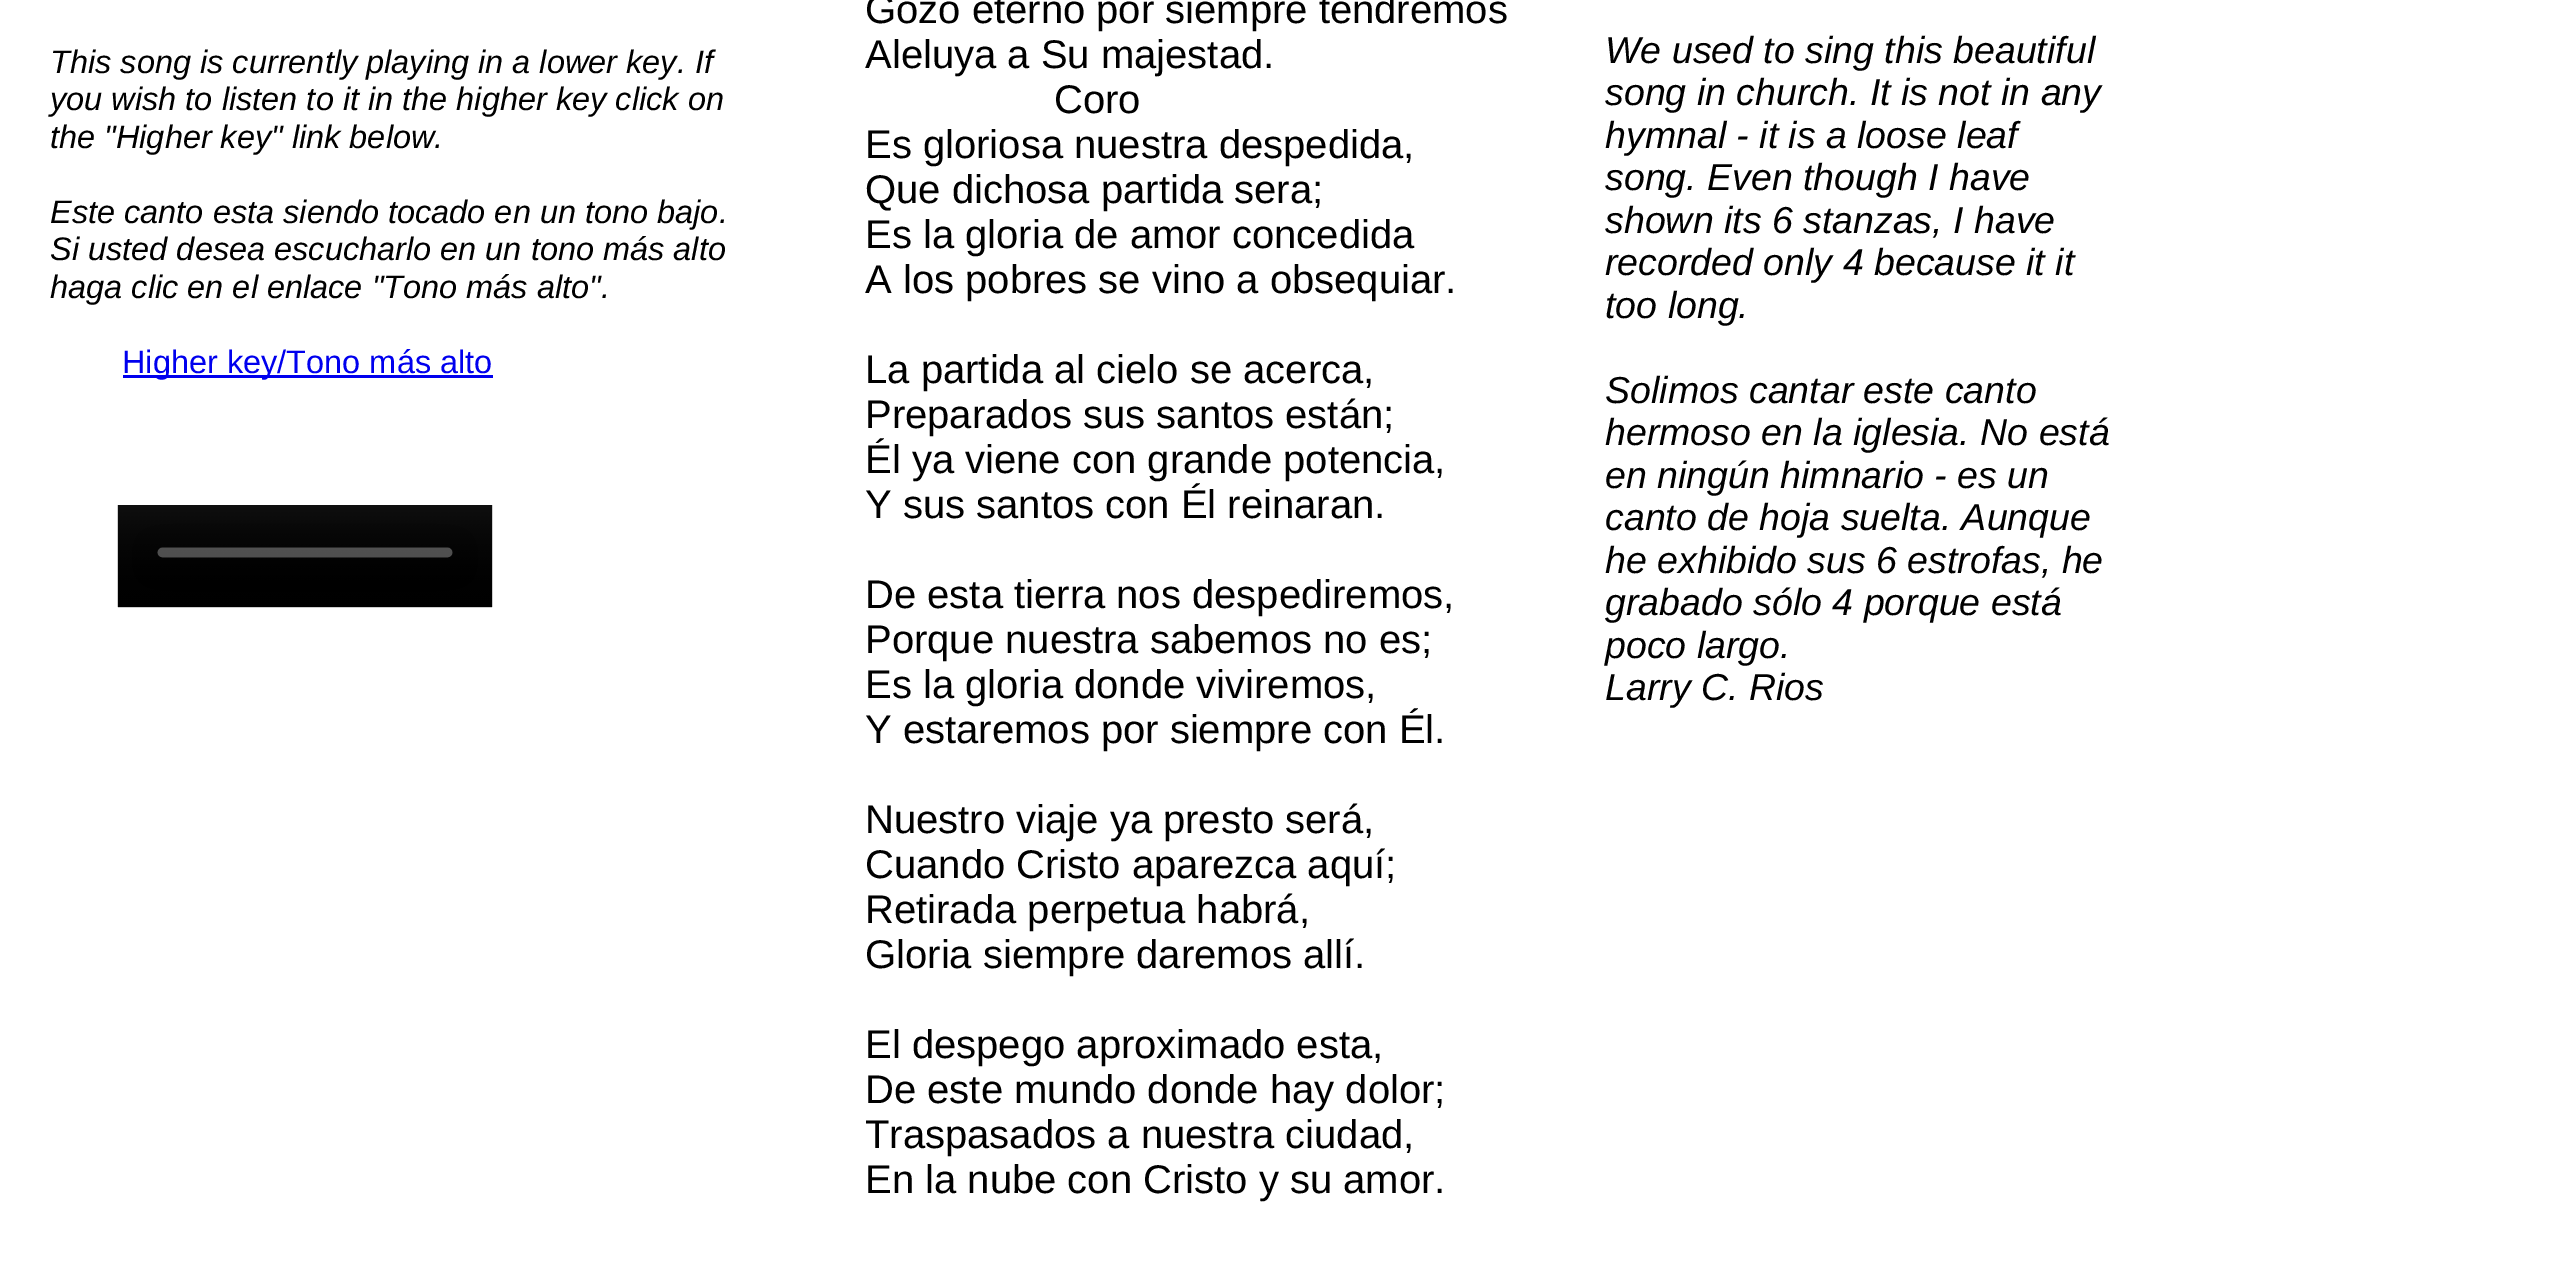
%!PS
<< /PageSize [2565 1274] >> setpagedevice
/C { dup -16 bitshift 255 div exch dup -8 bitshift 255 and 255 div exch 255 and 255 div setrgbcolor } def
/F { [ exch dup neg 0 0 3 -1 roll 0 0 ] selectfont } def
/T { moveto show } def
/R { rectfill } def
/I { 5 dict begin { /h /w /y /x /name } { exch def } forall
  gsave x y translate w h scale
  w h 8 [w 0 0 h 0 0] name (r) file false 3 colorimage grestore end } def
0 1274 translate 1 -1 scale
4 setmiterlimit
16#FFFFFF C
0 0 2565 1274 R
/LiberationSans-Italic 32.5 F
16#000000 C
(This song is currently playing in a lower key. If) 50 73 T
(you wish to listen to it in the higher key click on) 50 110 T
(the "Higher key" link below.) 50 148 T
(Este canto esta siendo tocado en un tono bajo.) 50 223 T
(Si usted desea escucharlo en un tono más alto) 50 260 T
(haga clic en el enlace "Tono más alto".) 50 298 T
16#0000EE C
123 375 370 3 R
/LiberationSans-Regular 32.5 F
(Higher key/Tono más alto) 122 373 T
/LiberationSans-Regular 40 F
16#000000 C
(Gozo eterno por siempre tendremos) 865 23 T
(Aleluya a Su majestad.) 865 68 T
(Coro) 1054 113 T
(Es gloriosa nuestra despedida,) 865 158 T
(Que dichosa partida sera;) 865 203 T
(Es la gloria de amor concedida) 865 248 T
(A los pobres se vino a obsequiar.) 865 293 T
(La partida al cielo se acerca,) 865 383 T
(Preparados sus santos están;) 865 428 T
(Él ya viene con grande potencia,) 865 473 T
(Y sus santos con Él reinaran.) 865 518 T
(De esta tierra nos despediremos,) 865 608 T
(Porque nuestra sabemos no es;) 865 653 T
(Es la gloria donde viviremos,) 865 698 T
(Y estaremos por siempre con Él.) 865 743 T
(Nuestro viaje ya presto será,) 865 833 T
(Cuando Cristo aparezca aquí;) 865 878 T
(Retirada perpetua habrá,) 865 923 T
(Gloria siempre daremos allí.) 865 968 T
(El despego aproximado esta,) 865 1058 T
(De este mundo donde hay dolor;) 865 1103 T
(Traspasados a nuestra ciudad,) 865 1148 T
(En la nube con Cristo y su amor.) 865 1193 T
/LiberationSans-Italic 37.5 F
(We used to sing this beautiful) 1605 63 T
(song in church. It is not in any) 1605 105 T
(hymnal - it is a loose leaf) 1605 148 T
(song. Even though I have) 1605 190 T
(shown its 6 stanzas, I have) 1605 233 T
(recorded only 4 because it it) 1605 275 T
(too long.) 1605 318 T
(Solimos cantar este canto) 1605 403 T
(hermoso en la iglesia. No está) 1605 445 T
(en ningún himnario - es un) 1605 488 T
(canto de hoja suelta. Aunque) 1605 530 T
(he exhibido sus 6 estrofas, he) 1605 573 T
(grabado sólo 4 porque está) 1605 615 T
(poco largo.) 1605 658 T
(Larry C. Rios) 1605 700 T
(1.rgb) 117 505 376 103 I
showpage
